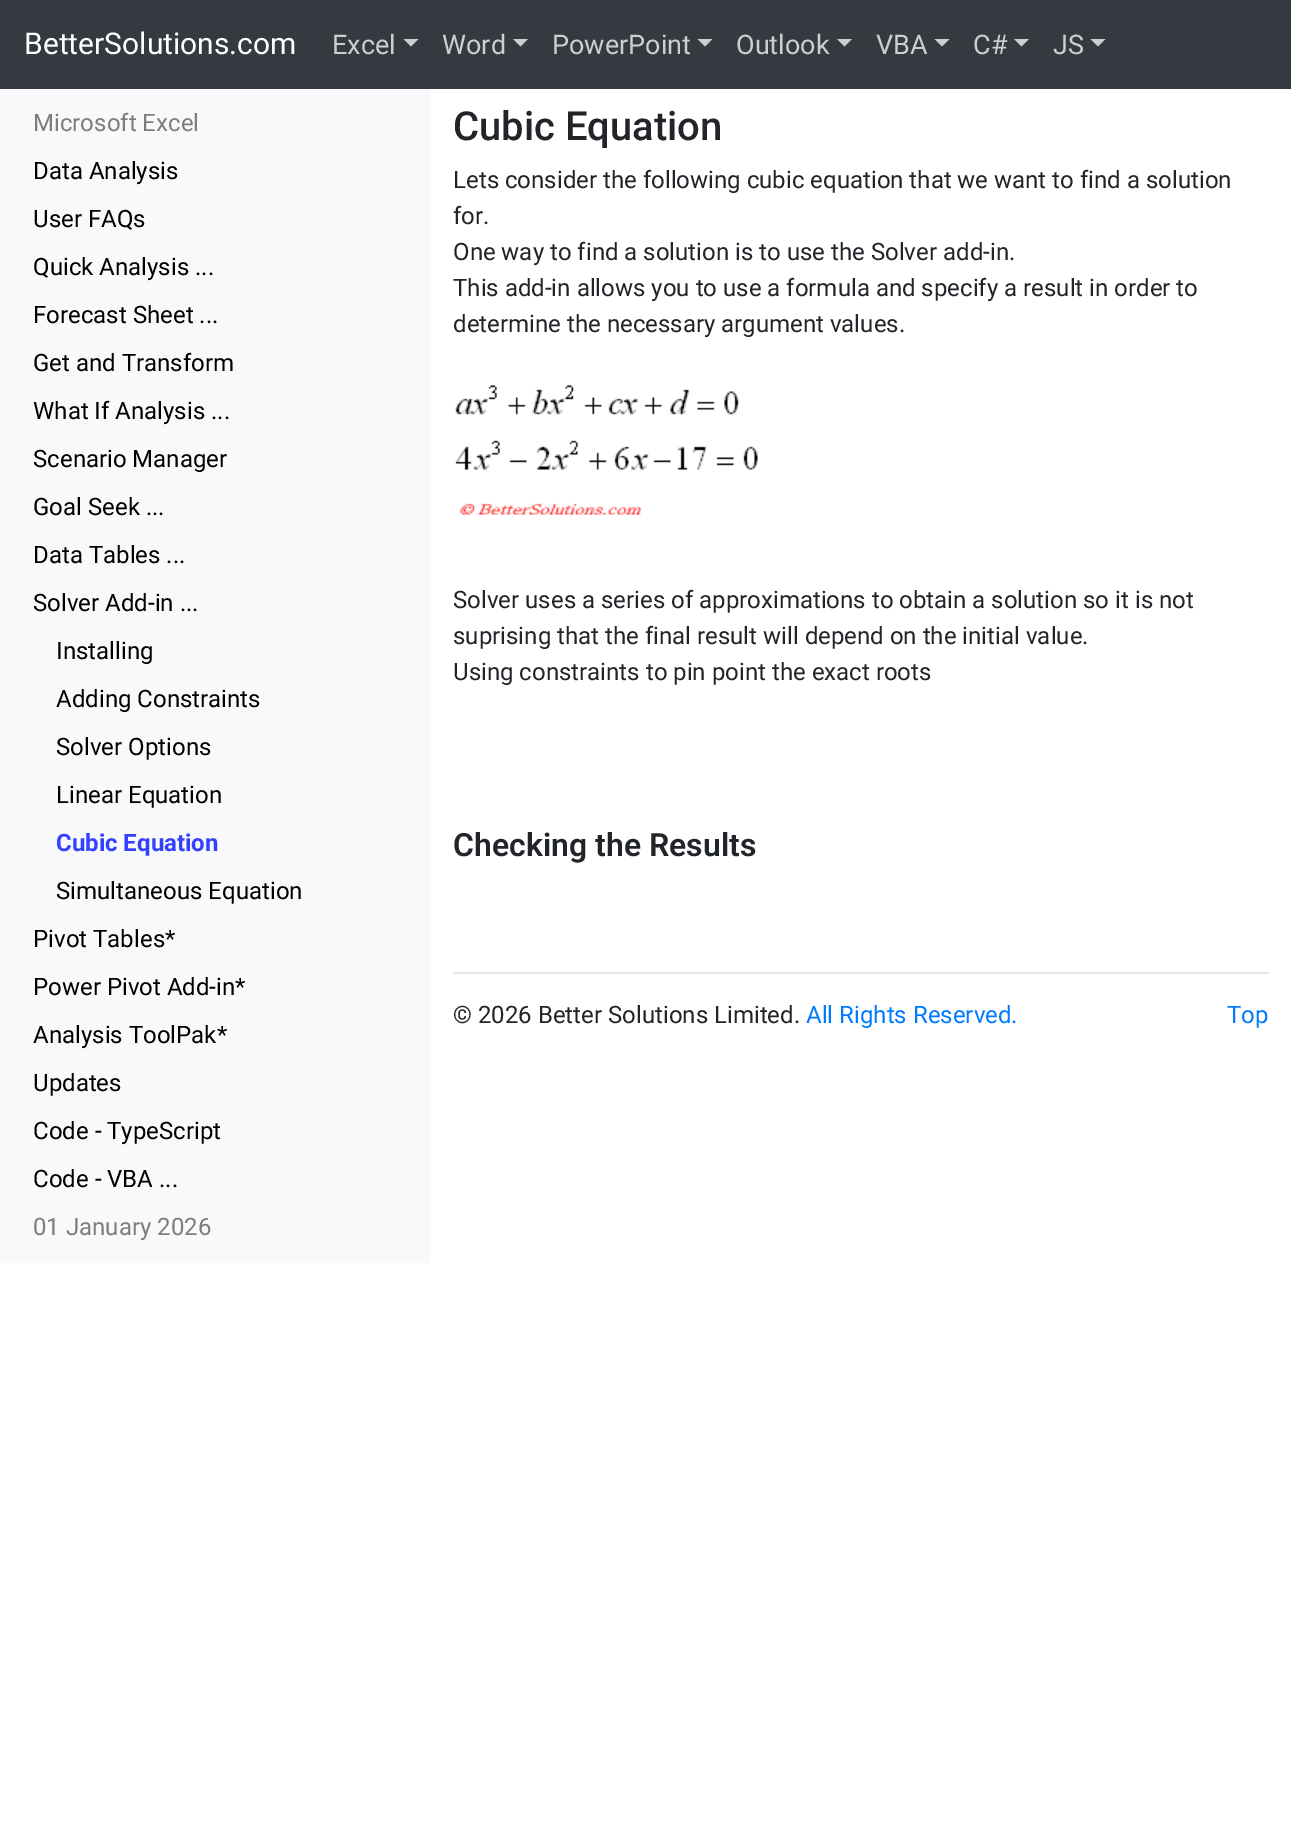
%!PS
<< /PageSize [1291 1829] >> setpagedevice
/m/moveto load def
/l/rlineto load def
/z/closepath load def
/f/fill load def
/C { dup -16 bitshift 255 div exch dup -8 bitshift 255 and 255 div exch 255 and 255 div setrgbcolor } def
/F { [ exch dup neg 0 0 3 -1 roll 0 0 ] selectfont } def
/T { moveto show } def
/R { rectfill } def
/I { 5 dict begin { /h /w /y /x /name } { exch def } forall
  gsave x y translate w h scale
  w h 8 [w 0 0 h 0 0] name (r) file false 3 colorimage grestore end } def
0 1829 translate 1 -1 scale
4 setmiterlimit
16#FFFFFF C
0 0 1291 1829 R
16#343A40 C
0 0 1291 89 R
/Roboto-Regular 30 F
16#FFFFFF C
(BetterSolutions.com) 24 54 T
/Roboto-Regular 27 F
16#CCCECF C
(Excel) 332 54 T
403.5 39 m 15 0 l -7.5 7.5 l z f
(Word) 442 54 T
513 39 m 15 0 l -7.5 7.5 l z f
(PowerPoint) 552 54 T
697.5 39 m 15 0 l -7.5 7.5 l z f
(Outlook) 736 54 T
837 39 m 15 0 l -7.5 7.5 l z f
(VBA) 876 54 T
934.5 39 m 15 0 l -7.5 7.5 l z f
(C#) 973 54 T
1014 39 m 15 0 l -7.5 7.5 l z f
(JS) 1053 54 T
1090.5 39 m 15 0 l -7.5 7.5 l z f
16#F8F9FA C
0 89 431 1174 R
/Roboto-Regular 24 F
16#7C7D7D C
(Microsoft Excel) 33 131 T
16#000000 C
(Data Analysis) 33 179 T
(User FAQs) 33 227 T
(Quick Analysis ...) 33 275 T
(Forecast Sheet ...) 33 323 T
(Get and Transform) 33 371 T
(What If Analysis ...) 33 419 T
(Scenario Manager) 33 467 T
(Goal Seek ...) 33 515 T
(Data Tables ...) 33 563 T
(Solver Add-in ...) 33 611 T
(Installing) 56 659 T
(Adding Constraints) 56 707 T
(Solver Options) 56 755 T
(Linear Equation) 56 803 T
/Roboto-Bold 24 F
16#3340FF C
(Cubic Equation) 56 851 T
/Roboto-Regular 24 F
16#000000 C
(Simultaneous Equation) 56 899 T
(Pivot Tables*) 33 947 T
(Power Pivot Add-in*) 33 995 T
(Analysis ToolPak*) 33 1043 T
(Updates) 33 1091 T
(Code - TypeScript) 33 1139 T
(Code - VBA ...) 33 1187 T
16#7C7D7D C
(01 January 2026) 33 1235 T
/Roboto-Medium 40 F
16#212529 C
(Cubic Equation) 453 140 T
/Roboto-Regular 24 F
(Lets consider the following cubic equation that we want to find a solution) 453 188 T
(for.) 453 224 T
(One way to find a solution is to use the Solver add-in.) 453 260 T
(This add-in allows you to use a formula and specify a result in order to) 453 296 T
(determine the necessary argument values.) 453 332 T
(1.rgb) 455 385 303 130 I
(Solver uses a series of approximations to obtain a solution so it is not) 453 608 T
(suprising that the final result will depend on the initial value.) 453 644 T
(Using constraints to pin point the exact roots) 453 680 T
/Roboto-SemiBold 32 F
(Checking the Results) 453 856 T
16#E6E6E6 C
453 972 816 2 R
/Roboto-Regular 24 F
16#212529 C
(© 2026 Better Solutions Limited.) 453 1023 T
16#007BFF C
(All Rights Reserved.) 806 1023 T
(Top) 1227 1023 T
showpage
